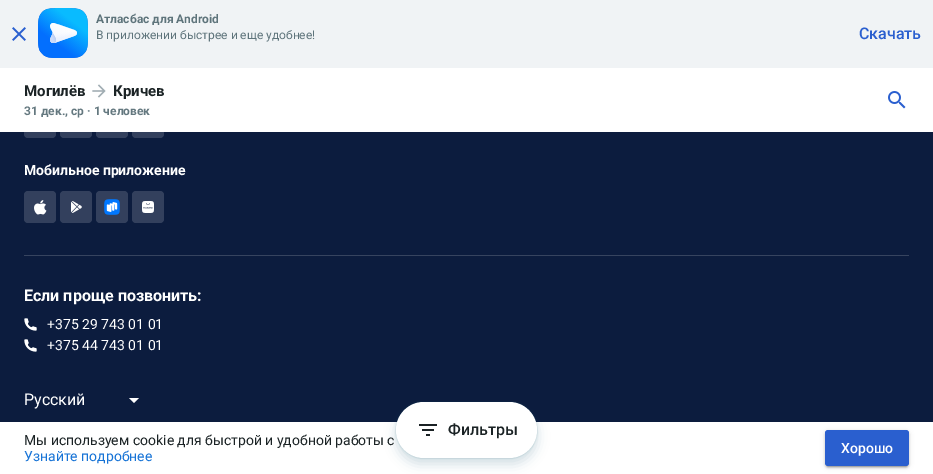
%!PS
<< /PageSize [933 474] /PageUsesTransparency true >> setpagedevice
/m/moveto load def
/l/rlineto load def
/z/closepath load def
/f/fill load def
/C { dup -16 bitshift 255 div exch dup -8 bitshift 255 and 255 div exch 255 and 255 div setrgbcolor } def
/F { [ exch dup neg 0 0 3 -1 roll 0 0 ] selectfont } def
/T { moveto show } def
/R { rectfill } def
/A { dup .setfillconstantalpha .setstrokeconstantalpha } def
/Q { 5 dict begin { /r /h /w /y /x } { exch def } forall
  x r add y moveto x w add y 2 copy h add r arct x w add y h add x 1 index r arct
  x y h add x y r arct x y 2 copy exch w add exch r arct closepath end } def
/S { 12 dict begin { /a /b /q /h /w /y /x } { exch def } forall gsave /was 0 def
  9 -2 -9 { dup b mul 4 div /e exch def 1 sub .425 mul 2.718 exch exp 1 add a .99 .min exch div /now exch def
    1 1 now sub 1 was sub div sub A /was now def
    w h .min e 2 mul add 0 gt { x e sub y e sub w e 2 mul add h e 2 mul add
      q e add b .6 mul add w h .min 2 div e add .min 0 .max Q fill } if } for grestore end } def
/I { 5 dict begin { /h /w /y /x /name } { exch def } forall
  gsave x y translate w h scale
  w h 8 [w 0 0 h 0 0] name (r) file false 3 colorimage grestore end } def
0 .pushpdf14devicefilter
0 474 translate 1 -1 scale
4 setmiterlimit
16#0C1C3E C
0 0 933 474 R
16#F0F3F5 C
0 0 933 68 R
(1.rgb) 12 27 14 14 I
(2.rgb) 38 8 50 50 I
/Roboto-Bold 12 F
16#5E747B C
(Атласбас для Android) 96 23 T
/Roboto-Regular 12 F
(В приложении быстрее и еще удобнее!) 96 39 T
/Roboto-Medium 16 F
16#2A5FCF C
(Скачать) 859 39 T
16#33405D C
24 106 32 32 4 Q f
60 106 32 32 4 Q f
96 106 32 32 4 Q f
132 106 32 32 4 Q f
16#FFFFFF C
0 68 933 64 R
/Roboto-Bold 15 F
16#1B2325 C
(Могилёв) 24 96 T
(3.rgb) 92 84 14 14 I
(Кричев) 113 96 T
/Roboto-Bold 12 F
16#64787F C
(31 дек., ср · 1 человек) 24 115 T
(4.rgb) 888 91 18 18 I
/Roboto-Bold 14 F
16#FFFFFF C
(Мобильное приложение) 24 175 T
16#33405D C
24 191 32 32 4 Q f
(5.rgb) 34 200 13 15 I
60 191 32 32 4 Q f
(6.rgb) 71 201 11 12 I
96 191 32 32 4 Q f
(7.rgb) 104 199 16 16 I
132 191 32 32 4 Q f
(8.rgb) 142 201 12 12 I
16#37445F C
24 255 885 1 R
/Roboto-Bold 16 F
16#FFFFFF C
(Если проще позвонить:) 24 301 T
(9.rgb) 24 318 13 13 I
/Roboto-Regular 14 F
(+375 29 743 01 01) 47 329 T
(9.rgb) 24 339 13 13 I
(+375 44 743 01 01) 47 350 T
/Roboto-Regular 16 F
(Русский) 24 405 T
129 398 m 5 5 l 5 -5 l z f
0 422 933 52 R
16#084E68 C
396 402 141 56 28 1 .26 S
396 408 141 56 28 6 .18 S
16#FFFFFF C
396 402 141 56 28 Q f
(10.rgb) 419 424 18 12 I
/Roboto-Medium 16 F
16#1B2325 C
(Фильтры) 448 435 T
/Roboto-Regular 14 F
(Мы используем cookie для быстрой и удобной работы с) 24 445 T
16#1673D6 C
(Узнайте подробнее) 24 461 T
16#000000 C
825 431 84 36 3 2.5 .12 S
825 432 84 36 3 1 .14 S
827 435 80 32 1 .5 .2 S
16#2A5FCF C
825 430 84 36 3 Q f
/Roboto-Medium 14 F
16#FFFFFF C
(Хорошо) 841 453 T
.poppdf14devicefilter showpage
